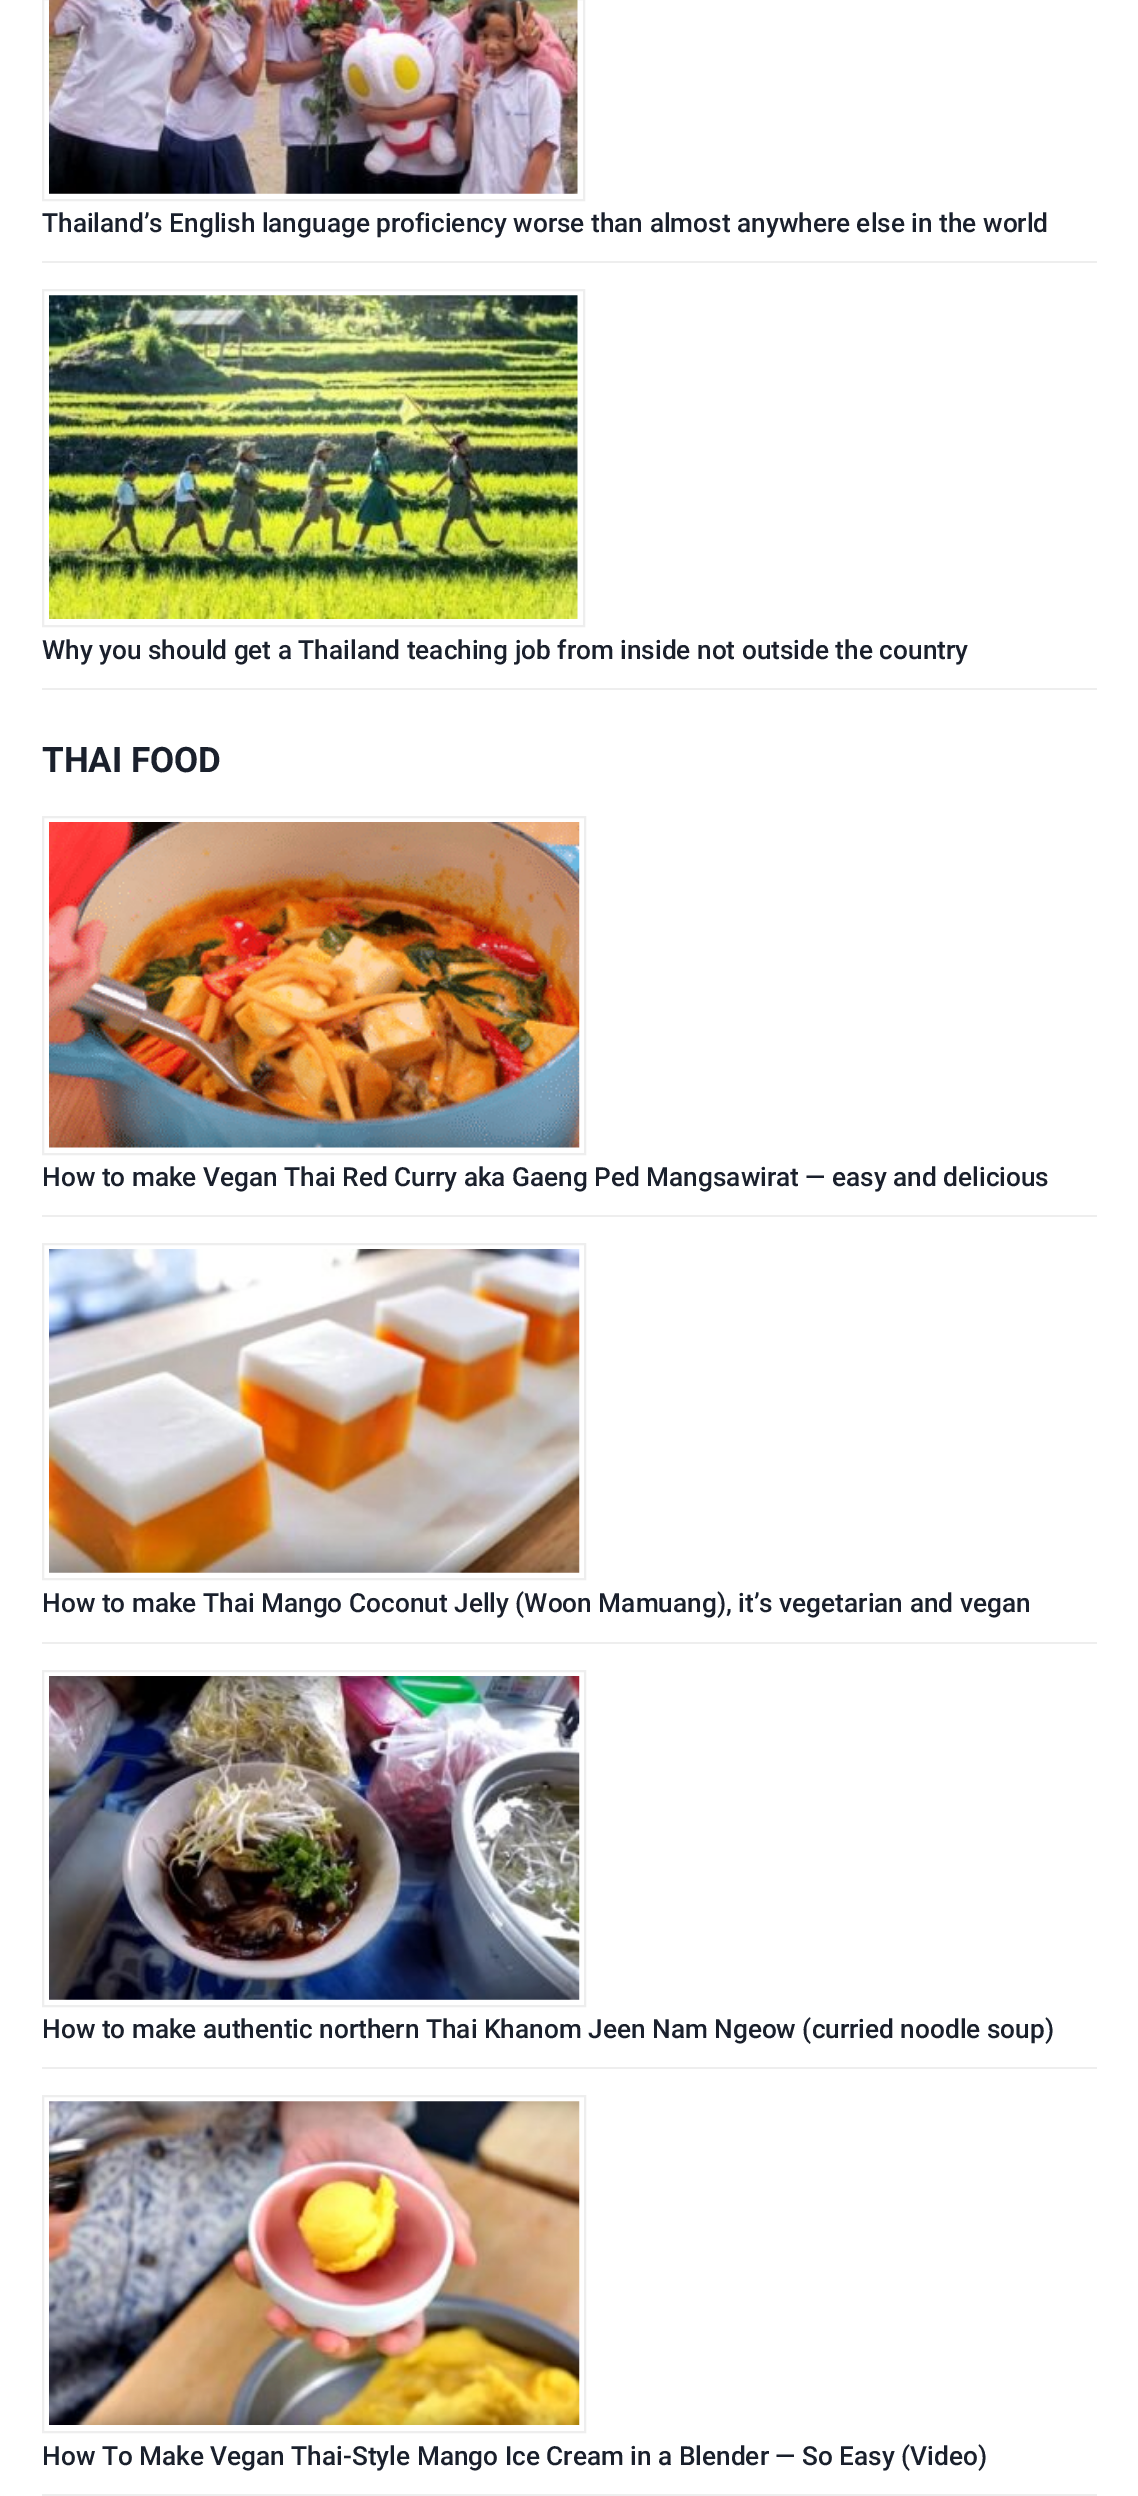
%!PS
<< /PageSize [1138 2496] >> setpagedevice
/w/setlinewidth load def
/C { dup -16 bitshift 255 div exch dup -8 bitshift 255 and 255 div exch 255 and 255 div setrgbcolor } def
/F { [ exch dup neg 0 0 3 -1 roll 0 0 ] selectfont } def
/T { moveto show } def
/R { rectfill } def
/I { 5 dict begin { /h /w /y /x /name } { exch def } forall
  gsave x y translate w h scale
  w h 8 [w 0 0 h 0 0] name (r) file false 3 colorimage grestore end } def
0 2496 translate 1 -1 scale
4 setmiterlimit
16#FFFFFF C
0 0 1138 2496 R
16#EEEEEE C
42 261 1055 2 R
2 w
43 -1 541 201 rectstroke
(1.rgb) 49 0 529 194 I
/Roboto-Medium 26.25 F
16#1A202C C
(Thailand’s English language proficiency worse than almost anywhere else in the world) 42 232 T
16#EEEEEE C
42 688 1055 2 R
43 290 541 336 rectstroke
(2.rgb) 49 295 529 324 I
16#1A202C C
(Why you should get a Thailand teaching job from inside not outside the country) 42 659 T
/Roboto-Bold 35 F
(THAI FOOD) 42 772 T
16#EEEEEE C
42 1215 1055 2 R
43 817 542 337 rectstroke
(3.rgb) 49 822 531 326 I
/Roboto-Medium 26.25 F
16#1A202C C
(How to make Vegan Thai Red Curry aka Gaeng Ped Mangsawirat — easy and delicious) 42 1186 T
16#EEEEEE C
42 1642 1055 2 R
43 1244 542 335 rectstroke
(4.rgb) 49 1249 531 324 I
16#1A202C C
(How to make Thai Mango Coconut Jelly \(Woon Mamuang\), it’s vegetarian and vegan) 42 1612 T
16#EEEEEE C
42 2067 1055 2 R
43 1671 542 335 rectstroke
(5.rgb) 49 1676 531 324 I
16#1A202C C
(How to make authentic northern Thai Khanom Jeen Nam Ngeow \(curried noodle soup\)) 42 2038 T
16#EEEEEE C
42 2494 1055 2 R
43 2096 542 336 rectstroke
(6.rgb) 49 2101 531 324 I
16#1A202C C
(How To Make Vegan Thai-Style Mango Ice Cream in a Blender — So Easy \(Video\)) 42 2465 T
showpage
